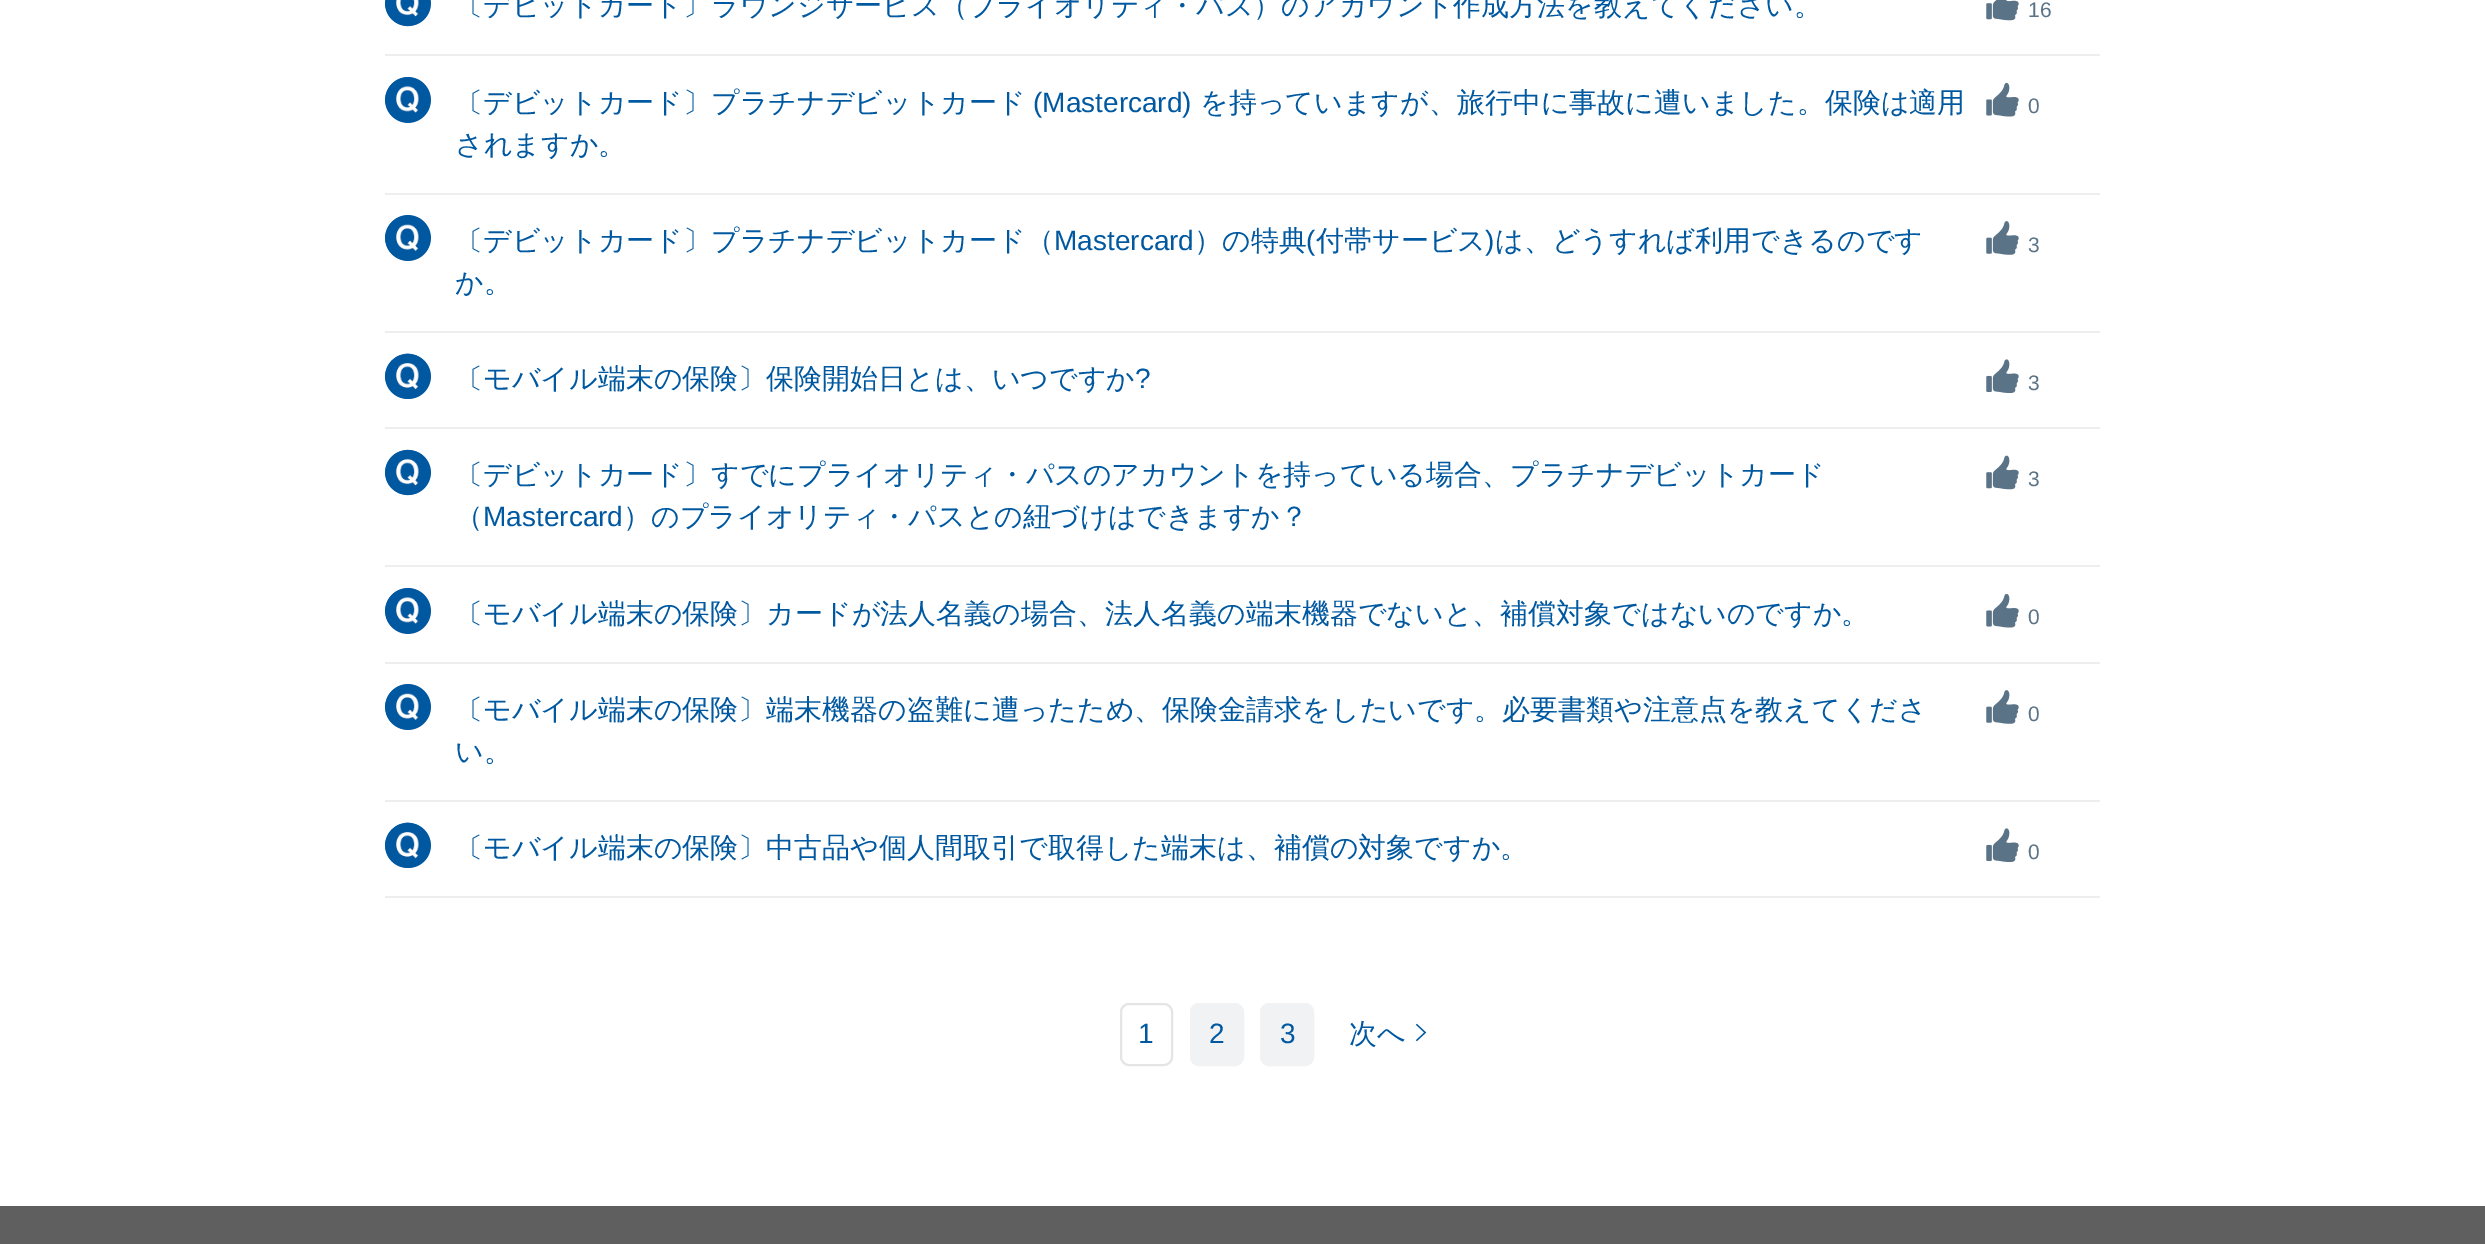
%!PS
<< /PageSize [2485 1244] >> setpagedevice
/f/fill load def
/s/stroke load def
/q/gsave load def
/Q_/grestore load def
/w/setlinewidth load def
/C { dup -16 bitshift 255 div exch dup -8 bitshift 255 and 255 div exch 255 and 255 div setrgbcolor } def
/F { [ exch dup neg 0 0 3 -1 roll 0 0 ] selectfont } def
/T { moveto show } def
/R { rectfill } def
/O { newpath 0 360 arc closepath } def
/Q { 5 dict begin { /r /h /w /y /x } { exch def } forall
  x r add y moveto x w add y 2 copy h add r arct x w add y h add x 1 index r arct
  x y h add x y r arct x y 2 copy exch w add exch r arct closepath end } def
/I { 5 dict begin { /h /w /y /x /name } { exch def } forall
  gsave x y translate w h scale
  w h 8 [w 0 0 h 0 0] name (r) file false 3 colorimage grestore end } def
0 1244 translate 1 -1 scale
4 setmiterlimit
16#FFFFFF C
0 0 2485 1244 R
16#EEEEEE C
385 54 1715 2 R
16#0058A0 C
385 -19 46 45 22.5 Q f
(1.rgb) 385 0 46 27 I
/WenQuanYiZenHei-Medium 28 F
(〔デビットカード〕ラウンジサービス（プライオリティ・パス）のアカウント作成方法を教えてください。) 455 15 T
(2.rgb) 1986 0 33 21 I
/LiberationSans-Regular 21 F
16#5B7386 C
(16) 2028 17 T
16#EEEEEE C
385 193 1715 2 R
16#0058A0 C
408 100 23 O f
(3.rgb) 385 77 46 46 I
/WenQuanYiZenHei-Medium 28 F
(〔デビットカード〕プラチナデビットカード) 455 112 T
/LiberationSans-Regular 28 F
(\(Mastercard\)) 1033 112 T
/WenQuanYiZenHei-Medium 28 F
(を持っていますが、旅行中に事故に遭いました。保険は適用) 1200 112 T
(されますか。) 455 154 T
(4.rgb) 1986 82 33 35 I
/LiberationSans-Regular 21 F
16#5B7386 C
(0) 2028 113 T
16#EEEEEE C
385 331 1715 2 R
16#0058A0 C
408 238 23 O f
(5.rgb) 385 215 46 46 I
/WenQuanYiZenHei-Medium 28 F
(〔デビットカード〕プラチナデビットカード（) 455 250 T
/LiberationSans-Regular 28 F
(Mastercard) 1054 250 T
/WenQuanYiZenHei-Medium 28 F
(）の特典) 1194 250 T
/LiberationSans-Regular 28 F
(\() 1306 250 T
/WenQuanYiZenHei-Medium 28 F
(付帯サービス) 1316 250 T
/LiberationSans-Regular 28 F
(\)) 1485 250 T
/WenQuanYiZenHei-Medium 28 F
(は、どうすれば利用できるのです) 1495 250 T
(か。) 455 292 T
(6.rgb) 1986 221 33 34 I
/LiberationSans-Regular 21 F
16#5B7386 C
(3) 2028 252 T
16#EEEEEE C
385 427 1715 2 R
16#0058A0 C
385 354 46 45 22.5 Q f
(7.rgb) 384 353 47 46 I
/WenQuanYiZenHei-Medium 28 F
(〔モバイル端末の保険〕保険開始日とは、いつですか) 455 388 T
/LiberationSans-Regular 28 F
(?) 1135 388 T
(8.rgb) 1986 359 33 34 I
/LiberationSans-Regular 21 F
16#5B7386 C
(3) 2028 390 T
16#EEEEEE C
385 565 1715 2 R
16#0058A0 C
385 450 46 45 22.5 Q f
(9.rgb) 385 449 46 47 I
/WenQuanYiZenHei-Medium 28 F
(〔デビットカード〕すでにプライオリティ・パスのアカウントを持っている場合、プラチナデビットカード) 455 484 T
(（) 455 526 T
/LiberationSans-Regular 28 F
(Mastercard) 483 526 T
/WenQuanYiZenHei-Medium 28 F
(）のプライオリティ・パスとの紐づけはできますか？) 623 526 T
(10.rgb) 1986 455 33 35 I
/LiberationSans-Regular 21 F
16#5B7386 C
(3) 2028 486 T
16#EEEEEE C
385 662 1715 2 R
16#0058A0 C
408 611 23 O f
(3.rgb) 385 588 46 46 I
/WenQuanYiZenHei-Medium 28 F
(〔モバイル端末の保険〕カードが法人名義の場合、法人名義の端末機器でないと、補償対象ではないのですか。) 455 623 T
(4.rgb) 1986 593 33 35 I
/LiberationSans-Regular 21 F
16#5B7386 C
(0) 2028 624 T
16#EEEEEE C
385 800 1715 2 R
16#0058A0 C
408 707 23 O f
(5.rgb) 385 684 46 46 I
/WenQuanYiZenHei-Medium 28 F
(〔モバイル端末の保険〕端末機器の盗難に遭ったため、保険金請求をしたいです。必要書類や注意点を教えてくださ) 455 719 T
(い。) 455 761 T
(6.rgb) 1986 690 33 34 I
/LiberationSans-Regular 21 F
16#5B7386 C
(0) 2028 721 T
16#EEEEEE C
385 896 1715 2 R
16#0058A0 C
385 823 46 45 22.5 Q f
(11.rgb) 384 822 47 46 I
/WenQuanYiZenHei-Medium 28 F
(〔モバイル端末の保険〕中古品や個人間取引で取得した端末は、補償の対象ですか。) 455 857 T
(8.rgb) 1986 828 33 34 I
/LiberationSans-Regular 21 F
16#5B7386 C
(0) 2028 859 T
16#E5E5E5 C
2 w
1121 1004 51 61 8 Q s
/LiberationSans-Regular 28 F
16#0058A0 C
(1) 1138 1043 T
16#F1F2F4 C
1191 1004 52 61 8 Q q f Q_
s
16#0058A0 C
(2) 1209 1043 T
16#F1F2F4 C
1261 1004 52 61 8 Q q f Q_
s
16#0058A0 C
(3) 1280 1043 T
/WenQuanYiZenHei-Medium 28 F
(次へ) 1349 1043 T
(12.rgb) 1415 1023 12 19 I
16#5F5F5F C
0 1206 2485 38 R
showpage
